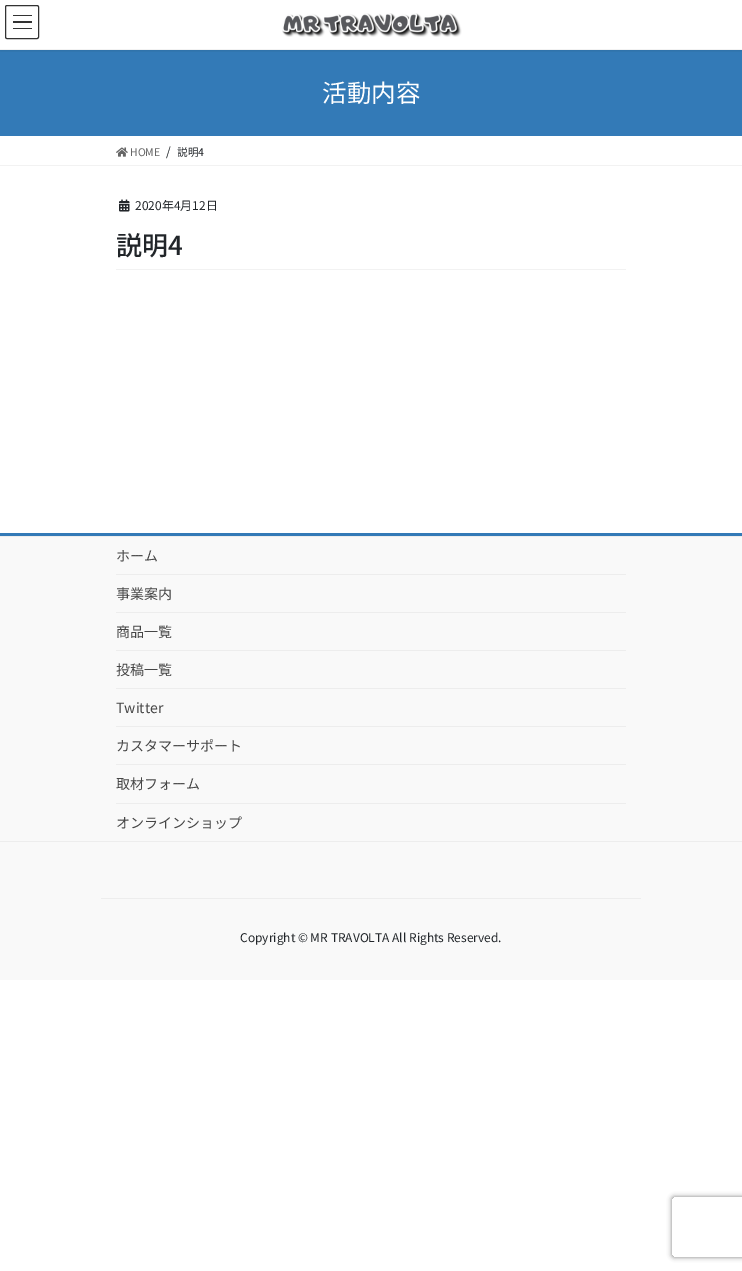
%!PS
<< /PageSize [742 1271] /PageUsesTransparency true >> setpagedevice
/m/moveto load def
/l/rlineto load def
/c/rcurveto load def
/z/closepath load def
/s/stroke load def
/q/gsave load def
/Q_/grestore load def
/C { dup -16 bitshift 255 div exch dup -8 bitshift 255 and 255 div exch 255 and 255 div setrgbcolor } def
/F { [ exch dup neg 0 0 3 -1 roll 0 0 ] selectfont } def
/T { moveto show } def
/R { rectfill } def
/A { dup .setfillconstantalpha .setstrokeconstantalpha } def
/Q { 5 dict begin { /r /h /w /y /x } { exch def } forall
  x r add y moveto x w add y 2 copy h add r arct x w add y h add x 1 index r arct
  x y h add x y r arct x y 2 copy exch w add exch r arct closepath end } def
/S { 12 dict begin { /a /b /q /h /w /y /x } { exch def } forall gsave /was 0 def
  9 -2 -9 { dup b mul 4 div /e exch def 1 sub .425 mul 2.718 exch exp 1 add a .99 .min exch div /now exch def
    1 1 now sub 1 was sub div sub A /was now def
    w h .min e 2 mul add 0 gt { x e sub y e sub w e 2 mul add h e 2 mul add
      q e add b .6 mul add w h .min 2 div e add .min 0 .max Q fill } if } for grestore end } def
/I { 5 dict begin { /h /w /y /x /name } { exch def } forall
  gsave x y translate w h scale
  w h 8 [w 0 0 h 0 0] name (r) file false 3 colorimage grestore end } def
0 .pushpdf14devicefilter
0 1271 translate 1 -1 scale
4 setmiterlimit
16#FFFFFF C
0 0 742 1271 R
16#337AB7 C
0 50 742 86 R
q
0 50 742 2 rectclip
16#000000 C
0 1 742 50 0 1.5 .1 S
Q_
16#F2F2F2 C
0 49 742 1 R
(1.rgb) 282 13 180 24 I
16#333333 C
13 15 19 1 R
13 21 19 2 R
13 28 19 1 R
5.5 5.5 33 33 1.5 Q s
/NotoSansJP-Regular 24.5 F
16#FFFFFF C
(活動内容) 322 102 T
16#F2F2F2 C
0 165 742 1 R
(2.rgb) 116 147 12 10 I
/NotoSansJP-Regular 10.5 F
16#666666 C
(HOME) 130 156 T
/NotoSansJP-Regular 12 F
16#212529 C
(/) 166 156 T
/NotoSansJP-Regular 10.5 F
(説明4) 177 156 T
16#F2F2F2 C
116 269 510 1 R
(3.rgb) 119 199 11 13 I
/NotoSansJP-Regular 12 F
16#212529 C
(2020年4月12日) 135 210 T
/NotoSansJP-Medium 26 F
(説明4) 116 255 T
16#F9F9F9 C
0 537 742 443 R
16#337AB7 C
0 533 742 3 R
16#EDEDED C
0 536 742 1 R
0 841 742 1 R
116 574 510 1 R
/NotoSansJP-Regular 14 F
16#464646 C
(ホーム) 116 561 T
16#EDEDED C
116 612 510 1 R
16#464646 C
(事業案内) 116 599 T
16#EDEDED C
116 650 510 1 R
16#464646 C
(商品一覧) 116 637 T
16#EDEDED C
116 688 510 1 R
16#464646 C
(投稿一覧) 116 675 T
16#EDEDED C
116 726 510 1 R
16#464646 C
(Twitter) 116 713 T
16#EDEDED C
116 764 510 1 R
16#464646 C
(カスタマーサポート) 116 751 T
16#EDEDED C
116 803 510 1 R
16#464646 C
(取材フォーム) 116 789 T
(オンラインショップ) 116 828 T
16#EDEDED C
101 898 540 1 R
/NotoSansJP-Regular 12 F
16#212529 C
(Copyright © MR TRAVOLTA All Rights Reserved.) 240 942 T
q
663 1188 m 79 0 l 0 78 l -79 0 l z 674 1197 m 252 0 l 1 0 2 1 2 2 c 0 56 l 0 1 -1 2 -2 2 c -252 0 l -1 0 -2 -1 -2 -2 c 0 -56 l 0 -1 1 -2 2 -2 c z eoclip newpath
16#808080 C
672 1197 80 60 2 2.5 1 S
Q_
.poppdf14devicefilter showpage
